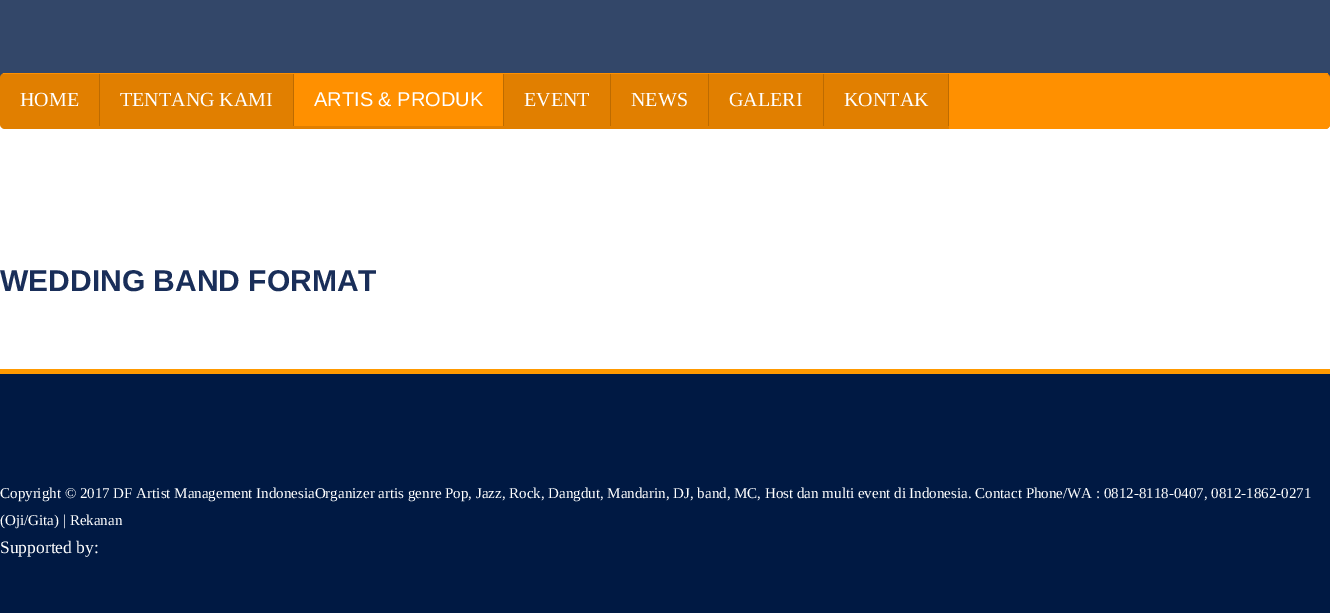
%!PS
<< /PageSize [1330 613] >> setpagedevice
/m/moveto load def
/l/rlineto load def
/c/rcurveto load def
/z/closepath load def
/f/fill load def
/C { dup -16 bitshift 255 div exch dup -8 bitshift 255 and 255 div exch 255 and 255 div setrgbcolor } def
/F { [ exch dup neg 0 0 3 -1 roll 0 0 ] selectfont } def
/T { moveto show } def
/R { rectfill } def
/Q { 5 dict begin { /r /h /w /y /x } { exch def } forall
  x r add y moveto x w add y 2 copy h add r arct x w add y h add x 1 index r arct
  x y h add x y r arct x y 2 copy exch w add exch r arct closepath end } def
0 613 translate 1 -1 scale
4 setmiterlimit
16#FFFFFF C
0 0 1330 613 R
16#334769 C
0 0 1330 78 R
16#E17F00 C
0 73 1330 56 5 Q f
16#FF9000 C
3 73 1325 1 R
16#BD6B00 C
99 74 1 52 R
/LiberationSerif-Regular 20 F
16#FFFFFF C
(HOME) 20 106 T
16#BD6B00 C
293 74 1 52 R
16#FFFFFF C
(TENTANG KAMI) 120 106 T
16#FF9000 C
294 74 209 52 R
16#BD6B00 C
503 74 1 52 R
/LiberationSans-Regular 20 F
16#FFFFFF C
(ARTIS & PRODUK) 314 106 T
16#BD6B00 C
610 74 1 52 R
/LiberationSerif-Regular 20 F
16#FFFFFF C
(EVENT) 524 106 T
16#BD6B00 C
708 74 1 52 R
16#FFFFFF C
(NEWS) 631 106 T
16#BD6B00 C
823 74 1 52 R
16#FFFFFF C
(GALERI) 729 106 T
16#BD6B00 C
948 74 1 52 R
16#FFFFFF C
(KONTAK) 844 106 T
16#FF9000 C
949 74 m 376 0 l 3 0 5 2 5 5 c 0 45 l 0 3 -2 5 -5 5 c -376 0 l z f
/LiberationSans-Bold 30 F
16#192E59 C
(WEDDING BAND FORMAT) 0 291 T
16#001943 C
0 374 1330 239 R
16#FF9900 C
0 369 1330 5 R
/LiberationSerif-Regular 15 F
16#FFFFFF C
(Copyright © 2017 DF Artist Management IndonesiaOrganizer artis genre Pop, Jazz, Rock, Dangdut, Mandarin, DJ, band, MC, Host dan multi event di Indonesia. Contact Phone/WA : 0812-8118-0407, 0812-1862-0271) 0 498 T
(\(Oji/Gita\) | Rekanan) 0 525 T
/LiberationSerif-Regular 17.5 F
(Supported by:) 0 553 T
showpage
